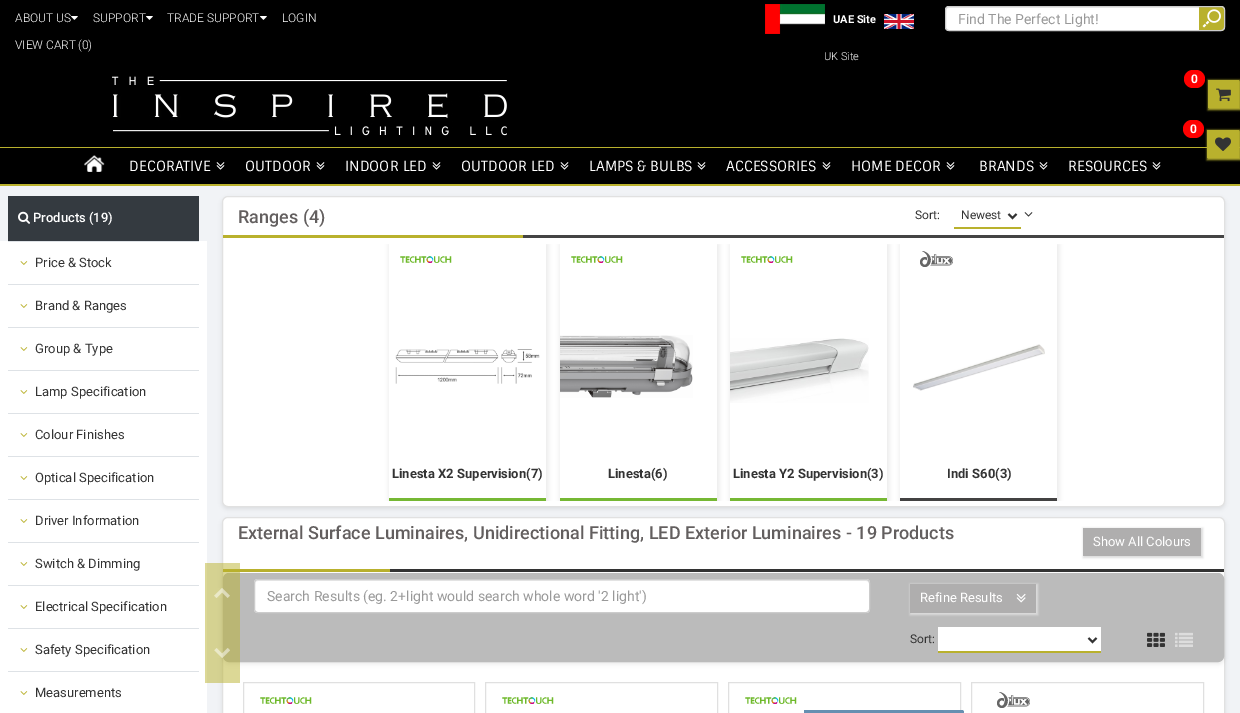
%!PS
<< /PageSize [1240 713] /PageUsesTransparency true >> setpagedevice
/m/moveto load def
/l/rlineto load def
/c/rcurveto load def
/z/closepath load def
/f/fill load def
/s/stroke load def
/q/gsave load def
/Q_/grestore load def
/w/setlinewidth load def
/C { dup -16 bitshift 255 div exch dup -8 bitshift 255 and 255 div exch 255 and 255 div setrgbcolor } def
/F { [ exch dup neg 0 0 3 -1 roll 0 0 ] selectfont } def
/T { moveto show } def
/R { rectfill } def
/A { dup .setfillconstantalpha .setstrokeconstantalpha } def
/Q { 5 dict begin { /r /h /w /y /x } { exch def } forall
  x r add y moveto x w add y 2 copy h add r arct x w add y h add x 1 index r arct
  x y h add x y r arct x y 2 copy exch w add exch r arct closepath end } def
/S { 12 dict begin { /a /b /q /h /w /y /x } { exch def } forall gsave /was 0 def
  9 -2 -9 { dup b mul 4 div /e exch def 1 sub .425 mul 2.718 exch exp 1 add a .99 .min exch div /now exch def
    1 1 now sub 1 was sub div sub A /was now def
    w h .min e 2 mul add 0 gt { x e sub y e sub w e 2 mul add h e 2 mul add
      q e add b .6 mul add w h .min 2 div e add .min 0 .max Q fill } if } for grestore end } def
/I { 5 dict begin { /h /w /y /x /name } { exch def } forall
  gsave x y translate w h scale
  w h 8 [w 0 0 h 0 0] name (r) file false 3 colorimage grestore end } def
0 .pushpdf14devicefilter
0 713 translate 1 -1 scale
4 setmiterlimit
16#F1F3F6 C
0 0 1240 713 R
16#000000 C
0 0 1240 184 R
16#B9B12D C
0 184 1240 2 R
/Roboto-Light 12 F
16#FFFFFF C
(ABOUT US) 15 22 T
(1.rgb) 71 16 7 4 I
(SUPPORT) 93 22 T
(1.rgb) 146 16 7 4 I
(TRADE SUPPORT) 167 22 T
(1.rgb) 260 16 7 4 I
(LOGIN) 282 22 T
(VIEW CART) 15 49 T
(\(0\)) 78 49 T
(2.rgb) 765 4 60 30 I
/Roboto-Bold 11 F
(UAE Site) 833 23 T
(3.rgb) 884 14 30 15 I
/Roboto-Light 11 F
(UK Site) 824 60 T
945 6 280 25 4 Q f
(4.rgb) 1199 6 25 25 I
0.07 A
16#000000 C
949 8 m 272 0 l 2 0 3 1 3 3 c 0 -1 l 0 -2 -1 -3 -3 -3 c -272 0 l -2 0 -3 1 -3 3 c 0 1 l 0 -2 1 -3 3 -3 c z f
1 A
16#CCCCCC C
945.5 6.5 279 24 3.5 Q s
/Roboto-Regular 14 F
16#999999 C
(Find The Perfect Light!) 958 24 T
16#B9B12D C
0 147 1240 1 R
(5.rgb) 112 76 395 60 I
(6.rgb) 84 155 21 17 I
/Sintony-Regular 14 F
16#FFFFFF C
(DECORATIVE) 129 171 T
(7.rgb) 216 162 9 8 I
(OUTDOOR) 245 171 T
(7.rgb) 316 162 9 8 I
(INDOOR LED) 345 171 T
(7.rgb) 432 162 9 8 I
(OUTDOOR LED) 461 171 T
(7.rgb) 560 162 9 8 I
(LAMPS & BULBS) 589 171 T
(7.rgb) 697 162 9 8 I
(ACCESSORIES) 726 171 T
(7.rgb) 822 162 9 8 I
(HOME DECOR) 851 171 T
(7.rgb) 946 162 9 8 I
(BRANDS) 979 171 T
(7.rgb) 1039 162 9 8 I
(RESOURCES) 1068 171 T
(7.rgb) 1152 162 9 8 I
16#B9B12D C
1208 80 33 30 0 1 1 S
1208 80 31 28 R
16#FF0000 C
1184 70 21 18 9 Q f
/Roboto-Bold 12 F
16#FFFFFF C
(0) 1191 83 T
(8.rgb) 1216 88 15 14 I
16#B9B12D C
1207 130 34 30 0 1 1 S
1207 130 32 28 R
16#FF0000 C
1183 120 21 18 9 Q f
16#FFFFFF C
(0) 1190 133 T
(9.rgb) 1215 137 16 14 I
16#343A40 C
8 196 191 45 R
(10.rgb) 18 211 12 13 I
/Roboto-Medium 13 F
16#FFFFFF C
(Products \(19\)) 33 222 T
0 241 207 472 R
16#DEE2E6 C
8 241 191 1 R
(11.rgb) 20 261 8 4 I
/Roboto-Regular 13 F
16#333333 C
(Price & Stock) 35 267 T
16#DEE2E6 C
8 284 191 1 R
(11.rgb) 20 304 8 4 I
16#333333 C
(Brand & Ranges) 35 310 T
16#DEE2E6 C
8 327 191 1 R
(11.rgb) 20 347 8 4 I
16#333333 C
(Group & Type) 35 353 T
16#DEE2E6 C
8 370 191 1 R
(11.rgb) 20 390 8 4 I
16#333333 C
(Lamp Specification) 35 396 T
16#DEE2E6 C
8 413 191 1 R
(11.rgb) 20 433 8 4 I
16#333333 C
(Colour Finishes) 35 439 T
16#DEE2E6 C
8 456 191 1 R
(11.rgb) 20 476 8 4 I
16#333333 C
(Optical Specification) 35 482 T
16#DEE2E6 C
8 499 191 1 R
(11.rgb) 20 519 8 4 I
16#333333 C
(Driver Information) 35 525 T
16#DEE2E6 C
8 542 191 1 R
(11.rgb) 20 562 8 4 I
16#333333 C
(Switch & Dimming) 35 568 T
16#DEE2E6 C
8 585 191 1 R
(11.rgb) 20 605 8 4 I
16#333333 C
(Electrical Specification) 35 611 T
16#DEE2E6 C
8 628 191 1 R
(11.rgb) 20 648 8 4 I
16#333333 C
(Safety Specification) 35 654 T
16#DEE2E6 C
8 671 191 1 R
(11.rgb) 20 691 8 4 I
16#333333 C
(Measurements) 35 697 T
16#000000 C
222 519 1003 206 6 2 .08 S
16#FFFFFF C
222.5 517.5 1002 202 5.5 Q q f Q_
16#E1E1E1 C
s
16#B9B12D C
223 569 167 3 R
16#333333 C
390 569 834 3 R
16#000000 C
223 575 1001 89 6 2 .08 S
16#BBBBBB C
223.5 573.5 1000 88 5.5 Q q f Q_
s
0.5 A
16#B9B12D C
205 563 35 60 R
1 A
(12.rgb) 214 588 16 10 I
16#000000 C
222 198 1003 311 6 2 .08 S
16#FFFFFF C
222.5 196.5 1002 310 5.5 Q q f Q_
16#E1E1E1 C
s
/Roboto-Medium 18 F
16#635F5F C
(Ranges \(4\)) 238 223 T
/Roboto-Regular 12 F
16#333333 C
(Sort:) 915 219 T
16#B9B12D C
954 227 67 2 R
16#333333 C
2 w
1008.5 214 m 4 4 l 4 -4 l s
(Newest) 961 219 T
(13.rgb) 1024 212 9 5 I
16#B9B12D C
223 235 300 3 R
16#444444 C
523 235 701 3 R
q
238 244 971 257 rectclip
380 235 m 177 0 l 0 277 l -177 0 l z 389 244 m 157 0 l 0 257 l -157 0 l z eoclip newpath
16#EAEAEA C
389 244 159 259 0 2.5 1 S
Q_
16#76B834 C
389 498 157 3 R
(14.rgb) 400 256 52 7 I
(15.rgb) 395 349 145 35 I
/Roboto-Bold 13 F
16#333333 C
(Linesta X2 Supervision\(7\)) 392 478 T
q
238 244 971 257 rectclip
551 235 m 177 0 l 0 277 l -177 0 l z 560 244 m 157 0 l 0 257 l -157 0 l z eoclip newpath
16#EAEAEA C
560 244 159 259 0 2.5 1 S
Q_
16#76B834 C
560 498 157 3 R
(14.rgb) 571 256 52 7 I
(16.rgb) 560 335 133 63 I
16#333333 C
(Linesta\(6\)) 608 478 T
q
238 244 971 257 rectclip
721 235 m 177 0 l 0 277 l -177 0 l z 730 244 m 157 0 l 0 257 l -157 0 l z eoclip newpath
16#EAEAEA C
730 244 159 259 0 2.5 1 S
Q_
16#76B834 C
730 498 157 3 R
(14.rgb) 741 256 52 7 I
(17.rgb) 730 338 139 65 I
16#333333 C
(Linesta Y2 Supervision\(3\)) 733 478 T
q
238 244 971 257 rectclip
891 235 m 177 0 l 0 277 l -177 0 l z 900 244 m 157 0 l 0 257 l -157 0 l z eoclip newpath
16#EAEAEA C
900 244 159 259 0 2.5 1 S
Q_
16#434242 C
900 498 157 3 R
(18.rgb) 920 251 33 16 I
(19.rgb) 913 344 132 47 I
16#333333 C
(Indi S60\(3\)) 947 478 T
/Roboto-Medium 18 F
16#635F5F C
(External Surface Luminaires, Unidirectional Fitting, LED Exterior Luminaires - 19 Products) 238 539 T
16#DCDCDC C
1083 528 120 30 0 1 1 S
16#AFAEAE C
1083 528 118 28 R
/Roboto-Regular 13 F
16#FFFFFF C
(Show All Colours) 1093 546 T
254 579 616 34 4 Q f
16#ECECEC C
258 581 m 608 0 l 2 0 3 1 3 3 c 0 -1 l 0 -2 -1 -3 -3 -3 c -608 0 l -2 0 -3 1 -3 3 c 0 1 l 0 -2 1 -3 3 -3 c z f
16#CCCCCC C
1 w
254.5 579.5 615 33 3.5 Q s
/Roboto-Regular 14 F
16#999999 C
(Search Results \(eg. 2+light would search whole word '2 light'\)) 267 601 T
16#DCDCDC C
910 584 128 31 0 1 1 S
16#AFAEAE C
910 584 126 29 R
/Roboto-Regular 13 F
16#FFFFFF C
(Refine Results) 920 602 T
(20.rgb) 1016 593 10 10 I
/Roboto-Regular 12 F
16#333333 C
(Sort:) 910 643 T
16#FFFFFF C
938 627 163 24 R
16#B9B12D C
938 651 163 2 R
16#333333 C
2 w
1088.5 638 m 4 4 l 4 -4 l s
(21.rgb) 1147 632 18 15 I
(22.rgb) 1175 632 18 15 I
16#E0E0E0 C
1 w
243.5 682.5 231 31 rectstroke
(14.rgb) 260 697 52 7 I
485.5 682.5 232 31 rectstroke
(14.rgb) 502 697 52 7 I
728.5 682.5 232 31 rectstroke
(14.rgb) 745 697 52 7 I
16#668FB1 C
804 710 m 158 0 l 1 0 2 1 2 2 c 0 1 l 0 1 -1 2 -2 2 c -158 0 l z f
16#E0E0E0 C
971.5 682.5 232 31 rectstroke
(18.rgb) 997 692 33 16 I
0.5 A
16#B9B12D C
205 623 35 60 R
1 A
(23.rgb) 214 648 16 10 I
.poppdf14devicefilter showpage
